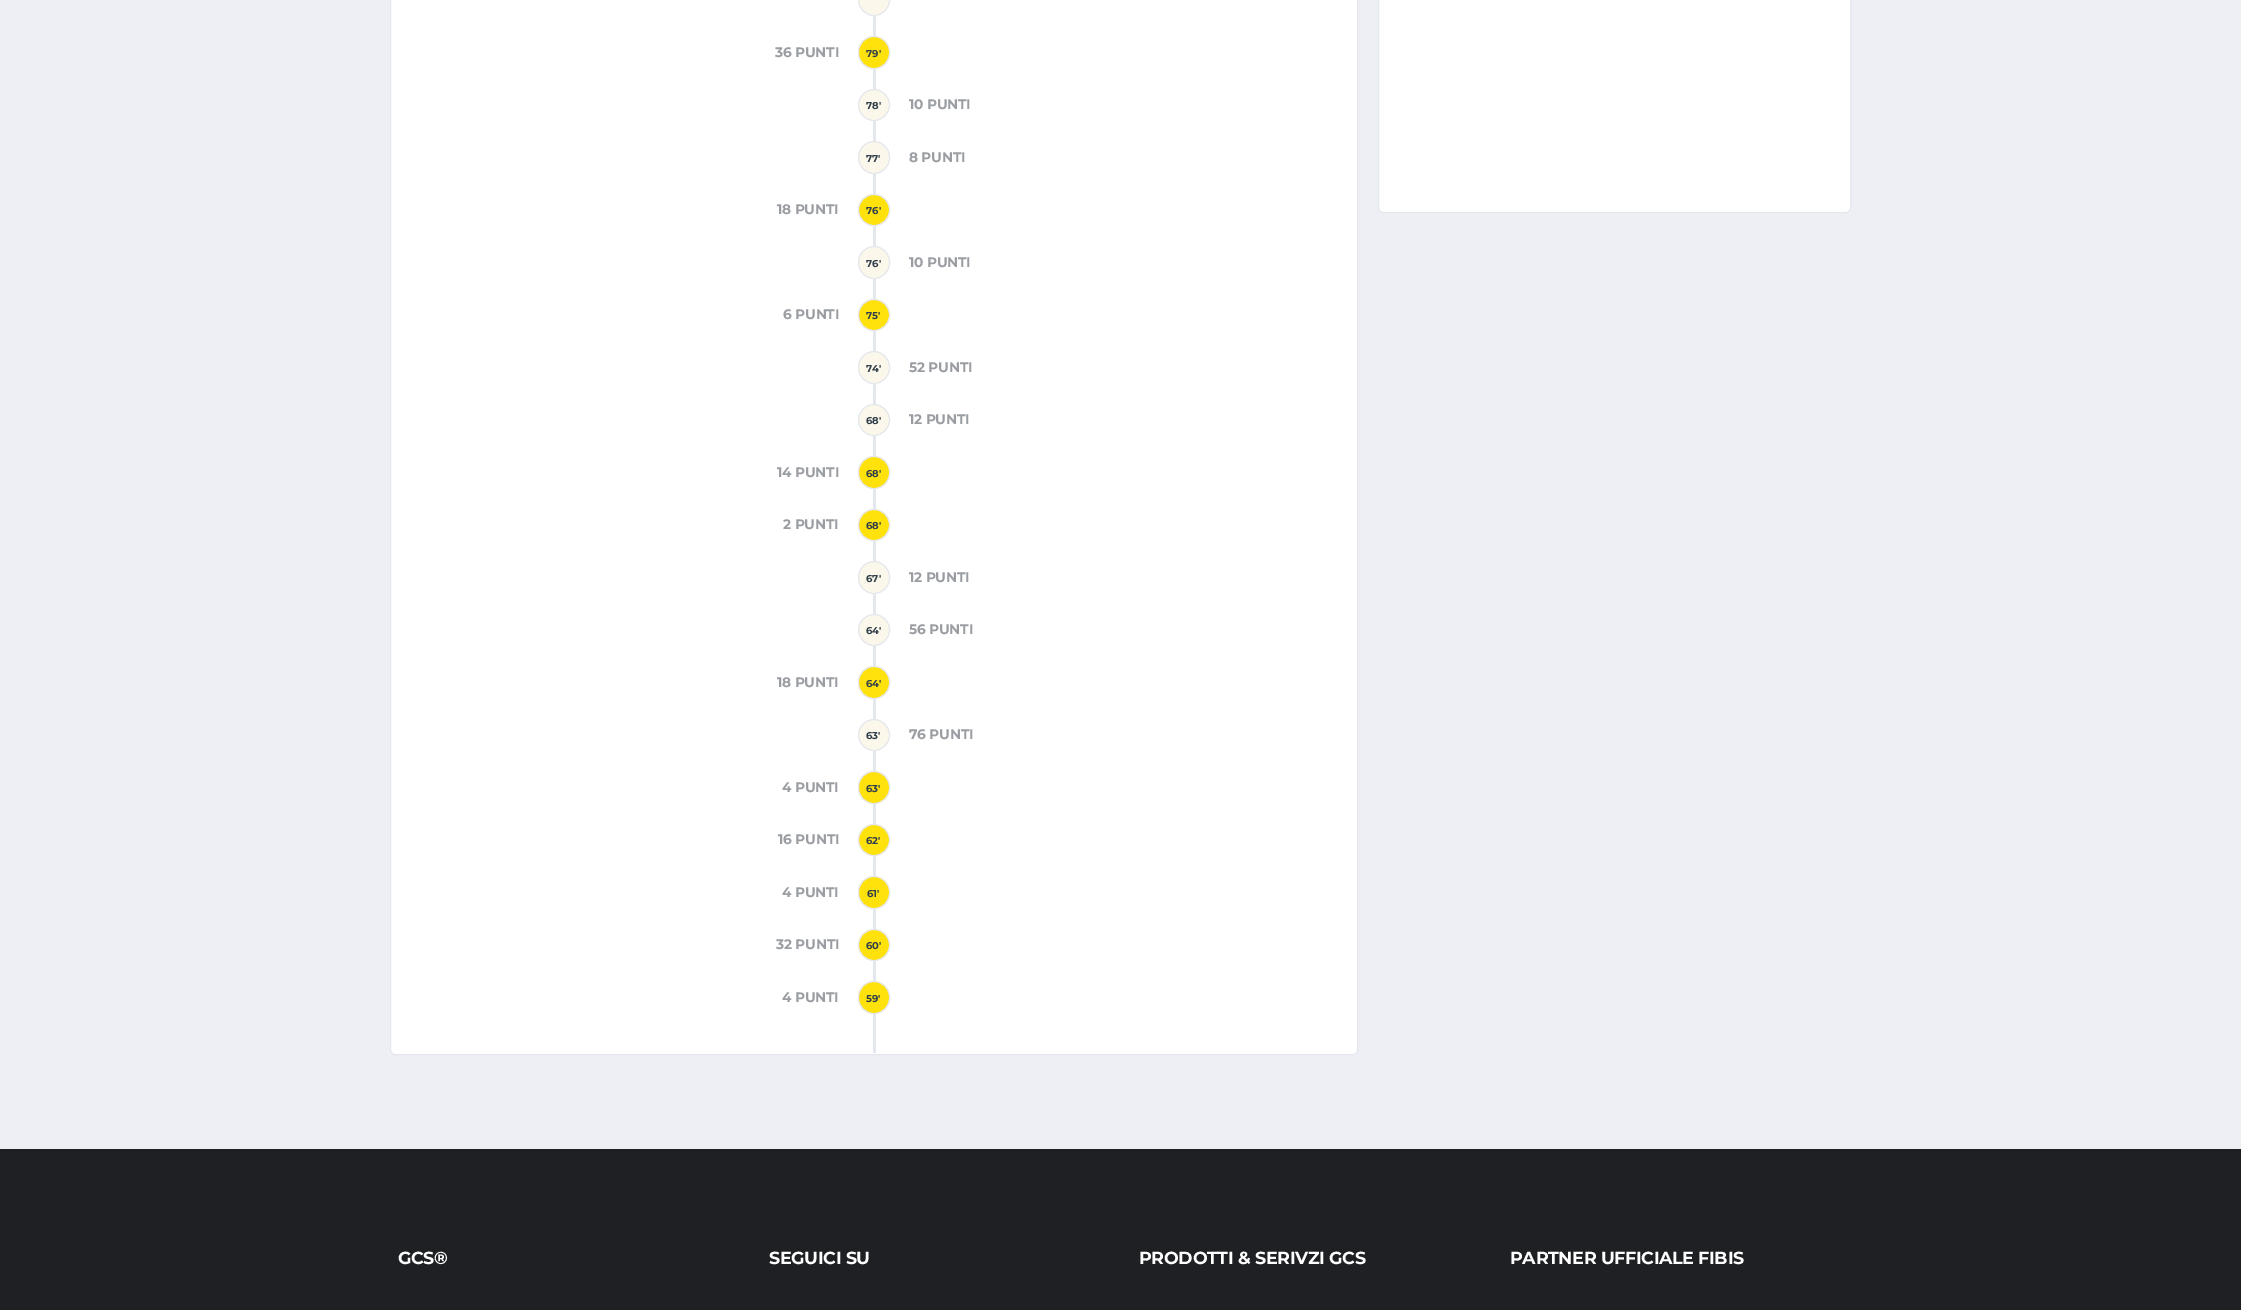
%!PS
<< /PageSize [2241 1310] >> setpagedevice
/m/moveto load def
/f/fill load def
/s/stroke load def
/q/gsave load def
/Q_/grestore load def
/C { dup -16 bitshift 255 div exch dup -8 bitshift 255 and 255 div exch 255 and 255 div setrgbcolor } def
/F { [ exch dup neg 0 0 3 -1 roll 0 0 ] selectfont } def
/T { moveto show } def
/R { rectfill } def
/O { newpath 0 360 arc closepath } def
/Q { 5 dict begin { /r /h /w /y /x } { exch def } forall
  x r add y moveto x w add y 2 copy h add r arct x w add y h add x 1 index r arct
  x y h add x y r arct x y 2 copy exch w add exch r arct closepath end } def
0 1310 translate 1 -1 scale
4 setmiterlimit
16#EDEFF4 C
0 0 2241 1310 R
16#FFFFFF C
390.5 -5.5 967 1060 4.5 Q q f Q_
16#E4E7ED C
s
873 15 3 1038 R
16#FBF8EB C
874 0 15.5 O q f Q_
16#E4E7ED C
s
/Montserrat-Bold 13.75 F
16#9A9DA2 C
775 57 m -.25 0 (36 PUNTI) ashow
16#FFE10C C
858.5 36.5 31 32 15.5 Q q f Q_
16#E4E7ED C
s
/Montserrat-Bold 10 F
16#31404B C
(79') 866 57 T
16#FBF8EB C
874 105 15.5 O q f Q_
16#E4E7ED C
s
16#31404B C
(78') 866 109 T
/Montserrat-Bold 13.75 F
16#9A9DA2 C
909 109 m -.25 0 (10 PUNTI) ashow
16#FBF8EB C
858.5 141.5 31 32 15.5 Q q f Q_
16#E4E7ED C
s
/Montserrat-Bold 10 F
16#31404B C
(77') 866 162 T
/Montserrat-Bold 13.75 F
16#9A9DA2 C
909 162 m -.25 0 (8 PUNTI) ashow
777 214 m -.25 0 (18 PUNTI) ashow
16#FFE10C C
874 210 15.5 O q f Q_
16#E4E7ED C
s
/Montserrat-Bold 10 F
16#31404B C
(76') 866 214 T
16#FBF8EB C
858.5 246.5 31 32 15.5 Q q f Q_
16#E4E7ED C
s
16#31404B C
(76') 866 267 T
/Montserrat-Bold 13.75 F
16#9A9DA2 C
909 267 m -.25 0 (10 PUNTI) ashow
783 319 m -.25 0 (6 PUNTI) ashow
16#FFE10C C
874 315 15.5 O q f Q_
16#E4E7ED C
s
/Montserrat-Bold 10 F
16#31404B C
(75') 866 319 T
16#FBF8EB C
858.5 351.5 31 32 15.5 Q q f Q_
16#E4E7ED C
s
16#31404B C
(74') 866 372 T
/Montserrat-Bold 13.75 F
16#9A9DA2 C
909 372 m -.25 0 (52 PUNTI) ashow
16#FBF8EB C
874 420 15.5 O q f Q_
16#E4E7ED C
s
/Montserrat-Bold 10 F
16#31404B C
(68') 866 424 T
/Montserrat-Bold 13.75 F
16#9A9DA2 C
909 424 m -.25 0 (12 PUNTI) ashow
777 477 m -.25 0 (14 PUNTI) ashow
16#FFE10C C
858.5 456.5 31 32 15.5 Q q f Q_
16#E4E7ED C
s
/Montserrat-Bold 10 F
16#31404B C
(68') 866 477 T
/Montserrat-Bold 13.75 F
16#9A9DA2 C
783 529 m -.25 0 (2 PUNTI) ashow
16#FFE10C C
874 525 15.5 O q f Q_
16#E4E7ED C
s
/Montserrat-Bold 10 F
16#31404B C
(68') 866 529 T
16#FBF8EB C
858.5 561.5 31 32 15.5 Q q f Q_
16#E4E7ED C
s
16#31404B C
(67') 866 582 T
/Montserrat-Bold 13.75 F
16#9A9DA2 C
909 582 m -.25 0 (12 PUNTI) ashow
16#FBF8EB C
874 630 15.5 O q f Q_
16#E4E7ED C
s
/Montserrat-Bold 10 F
16#31404B C
(64') 866 634 T
/Montserrat-Bold 13.75 F
16#9A9DA2 C
909 634 m -.25 0 (56 PUNTI) ashow
777 687 m -.25 0 (18 PUNTI) ashow
16#FFE10C C
858.5 666.5 31 32 15.5 Q q f Q_
16#E4E7ED C
s
/Montserrat-Bold 10 F
16#31404B C
(64') 866 687 T
16#FBF8EB C
874 735 15.5 O q f Q_
16#E4E7ED C
s
16#31404B C
(63') 866 739 T
/Montserrat-Bold 13.75 F
16#9A9DA2 C
909 739 m -.25 0 (76 PUNTI) ashow
782 792 m -.25 0 (4 PUNTI) ashow
16#FFE10C C
858.5 771.5 31 32 15.5 Q q f Q_
16#E4E7ED C
s
/Montserrat-Bold 10 F
16#31404B C
(63') 866 792 T
/Montserrat-Bold 13.75 F
16#9A9DA2 C
778 844 m -.25 0 (16 PUNTI) ashow
16#FFE10C C
874 840 15.5 O q f Q_
16#E4E7ED C
s
/Montserrat-Bold 10 F
16#31404B C
(62') 866 844 T
/Montserrat-Bold 13.75 F
16#9A9DA2 C
782 897 m -.25 0 (4 PUNTI) ashow
16#FFE10C C
858.5 876.5 31 32 15.5 Q q f Q_
16#E4E7ED C
s
/Montserrat-Bold 10 F
16#31404B C
(61') 867 897 T
/Montserrat-Bold 13.75 F
16#9A9DA2 C
776 949 m -.25 0 (32 PUNTI) ashow
16#FFE10C C
874 945 15.5 O q f Q_
16#E4E7ED C
s
/Montserrat-Bold 10 F
16#31404B C
(60') 866 949 T
/Montserrat-Bold 13.75 F
16#9A9DA2 C
782 1002 m -.25 0 (4 PUNTI) ashow
16#FFE10C C
858.5 981.5 31 32 15.5 Q q f Q_
16#E4E7ED C
s
/Montserrat-Bold 10 F
16#31404B C
(59') 866 1002 T
16#FFFFFF C
1378.5 -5.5 472 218 4.5 Q q f Q_
16#E4E7ED C
s
16#1E2024 C
0 1149 2241 161 R
/Montserrat-Bold 17.5 F
16#FFFFFF C
398 1264 m -.35 0 (GCS®) ashow
769 1264 m -.35 0 (SEGUICI SU) ashow
1139 1264 m -.35 0 (PRODOTTI & SERIVZI GCS) ashow
1510 1264 m -.35 0 (PARTNER UFFICIALE FIBIS) ashow
showpage
